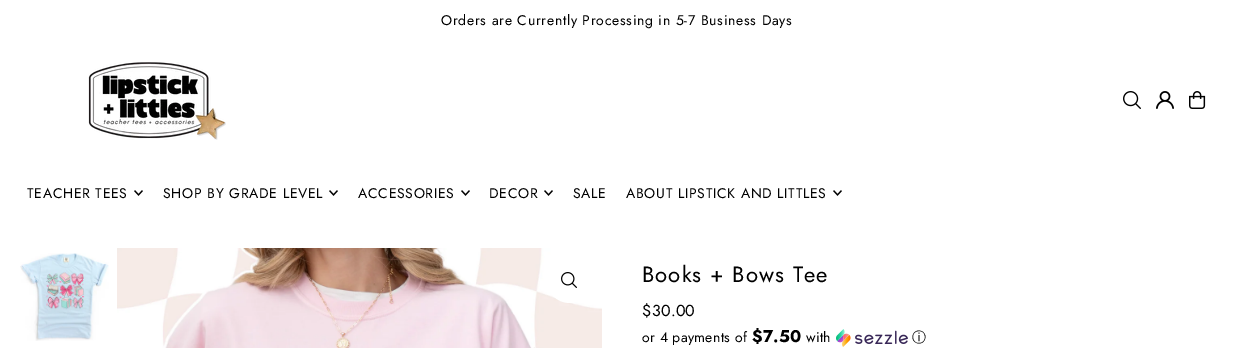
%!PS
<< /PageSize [1233 348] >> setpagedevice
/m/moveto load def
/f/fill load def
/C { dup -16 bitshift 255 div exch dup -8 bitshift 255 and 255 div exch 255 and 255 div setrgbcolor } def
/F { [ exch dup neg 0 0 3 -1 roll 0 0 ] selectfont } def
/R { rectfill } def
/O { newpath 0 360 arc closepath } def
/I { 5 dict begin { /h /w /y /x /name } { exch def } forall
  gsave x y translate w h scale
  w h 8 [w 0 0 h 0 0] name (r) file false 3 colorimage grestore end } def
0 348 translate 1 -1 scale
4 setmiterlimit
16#FFFFFF C
0 0 1233 348 R
/Jost-Regular 14 F
16#000000 C
441 25 m .7 0 (Orders are Currently Processing in 5-7 Business Days) ashow
(1.rgb) 88 62 138 78 I
(2.rgb) 1123 91 18 18 I
(3.rgb) 1156 91 18 18 I
(4.rgb) 1189 91 17 18 I
27 198 m .7 0 (TEACHER TEES) ashow
(5.rgb) 134 190 9 6 I
163 198 m .7 0 (SHOP BY GRADE LEVEL) ashow
(5.rgb) 329 190 9 6 I
358 198 m .7 0 (ACCESSORIES) ashow
(5.rgb) 461 190 9 6 I
489 198 m .7 0 (DECOR) ashow
(5.rgb) 544 190 9 6 I
573 198 m .7 0 (SALE) ashow
626 198 m .7 0 (ABOUT LIPSTICK AND LITTLES) ashow
(5.rgb) 833 190 9 6 I
(6.rgb) 20 253 89 88 I
(7.rgb) 117 248 485 100 I
16#FFFFFF C
569.5 280.5 22.5 O f
(8.rgb) 561 272 16 16 I
/Jost-Regular 22 F
16#000000 C
642 282 m 1.1 0 (Books + Bows Tee) ashow
/Jost-Regular 16 F
642 316 m .3 0 ($30.00) ashow
/Jost-Regular 14 F
642 342 m .3 0 (or 4 payments of) ashow
/Jost-Bold 17 F
752 342 m .3 0 ($7.50) ashow
/Jost-Regular 14 F
806 342 m .3 0 (with) ashow
(9.rgb) 836 329 72 18 I
/WenQuanYiZenHei-Medium 14 F
912 342 m .3 0 (ⓘ) ashow
showpage
